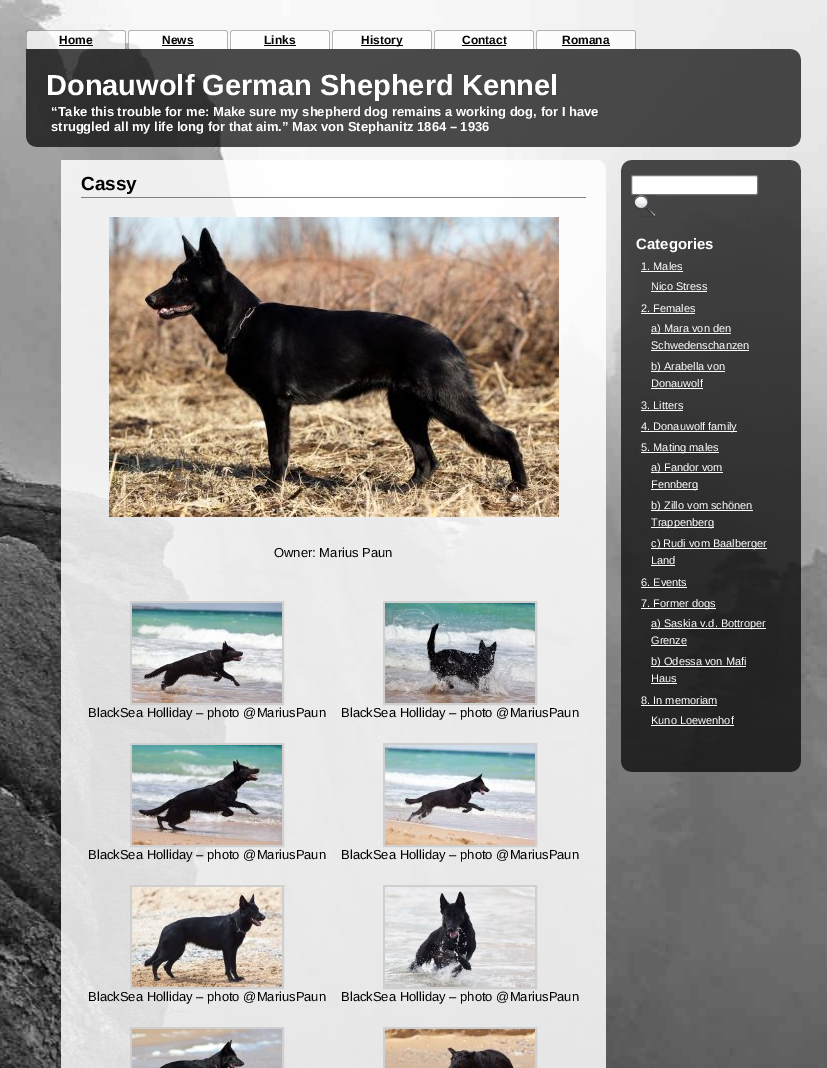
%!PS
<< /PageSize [827 1068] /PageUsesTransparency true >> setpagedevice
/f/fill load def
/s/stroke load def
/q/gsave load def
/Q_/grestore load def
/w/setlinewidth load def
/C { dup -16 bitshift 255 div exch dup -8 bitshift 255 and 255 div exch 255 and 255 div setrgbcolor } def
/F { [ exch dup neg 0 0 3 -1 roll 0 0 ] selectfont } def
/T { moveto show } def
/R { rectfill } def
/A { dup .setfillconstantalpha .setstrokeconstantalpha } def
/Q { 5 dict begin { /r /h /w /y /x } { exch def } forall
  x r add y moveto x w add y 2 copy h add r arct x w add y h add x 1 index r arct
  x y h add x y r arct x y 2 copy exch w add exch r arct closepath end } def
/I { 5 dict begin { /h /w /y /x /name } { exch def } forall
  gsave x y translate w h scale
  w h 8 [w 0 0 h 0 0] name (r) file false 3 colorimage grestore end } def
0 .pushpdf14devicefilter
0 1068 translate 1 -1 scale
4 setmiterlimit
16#FFFFFF C
0 0 827 1068 R
(1.rgb) 0 0 827 1068 I
(2.rgb) 26 30 100 19 I
/LiberationSans-Bold 12 F
16#000000 C
(Home) 59 44 T
59 45 34 1 R
(3.rgb) 128 30 100 19 I
(News) 162 44 T
162 45 32 1 R
(4.rgb) 230 30 100 19 I
(Links) 264 44 T
264 45 32 1 R
(5.rgb) 332 30 100 19 I
361 45 42 1 R
(History) 361 44 T
(6.rgb) 434 30 100 19 I
(Contact) 462 44 T
462 45 44 1 R
(7.rgb) 536 30 100 19 I
(Romana) 562 44 T
562 45 48 1 R
0.7 A
26 49 765 10 R
1 A
(8.rgb) 791 49 10 10 I
0.7 A
26 59 775 78 R
/LiberationSans-Bold 29 F
1 A
16#FFFFFF C
(Donauwolf German Shepherd Kennel) 46 95 T
/LiberationSans-Bold 13 F
(“Take this trouble for me: Make sure my shepherd dog remains a working dog, for I have) 51 116 T
(struggled all my life long for that aim.” Max von Stephanitz 1864 – 1936) 51 131 T
(9.rgb) 26 137 10 10 I
0.7 A
16#000000 C
36 137 755 10 R
1 A
(10.rgb) 791 137 10 10 I
0.85 A
16#FFFFFF C
61 160 535 10 R
1 A
(11.rgb) 596 160 10 10 I
0.85 A
61 170 545 898 R
1 A
16#808080 C
81 197 505 1 R
/LiberationSans-Bold 19 F
16#000000 C
(Cassy) 81 190 T
(12.rgb) 109 217 450 300 I
/LiberationSans-Regular 13 F
(Owner: Marius Paun) 274 557 T
16#CFCFCF C
2 w
131 602 152 102 rectstroke
(13.rgb) 132 603 150 100 I
16#000000 C
(BlackSea Holliday – photo @MariusPaun) 88 717 T
16#CFCFCF C
384 602 152 102 rectstroke
(14.rgb) 385 603 150 100 I
16#000000 C
(BlackSea Holliday – photo @MariusPaun) 341 717 T
16#CFCFCF C
131 744 152 102 rectstroke
(15.rgb) 132 745 150 100 I
16#000000 C
(BlackSea Holliday – photo @MariusPaun) 88 859 T
16#CFCFCF C
384 744 152 102 rectstroke
(16.rgb) 385 745 150 100 I
16#000000 C
(BlackSea Holliday – photo @MariusPaun) 341 859 T
16#CFCFCF C
131 886 152 102 rectstroke
(17.rgb) 132 887 150 100 I
16#000000 C
(BlackSea Holliday – photo @MariusPaun) 88 1001 T
16#CFCFCF C
384 886 152 102 rectstroke
(18.rgb) 385 887 150 100 I
16#000000 C
(BlackSea Holliday – photo @MariusPaun) 341 1001 T
16#CFCFCF C
131 1028 152 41 rectstroke
(19.rgb) 132 1029 150 39 I
384 1028 152 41 rectstroke
(20.rgb) 385 1029 150 39 I
(21.rgb) 621 160 10 10 I
0.7 A
16#000000 C
631 160 160 10 R
1 A
(22.rgb) 791 160 10 10 I
0.7 A
621 170 180 592 R
1 A
16#FFFFFF C
631.5 175.5 126 19 1.5 Q q f Q_
16#767676 C
1 w
s
(23.rgb) 634 195 22 22 I
/LiberationSans-Bold 15 F
16#FFFFFF C
(Categories) 636 249 T
/LiberationSans-Regular 11 F
(1. Males) 641 270 T
641 271 42 1 R
(Nico Stress) 651 290 T
651 291 56 1 R
(2. Females) 641 312 T
641 313 54 1 R
651 333 80 1 R
(a\) Mara von den) 651 332 T
(Schwedenschanzen) 651 349 T
651 350 98 1 R
651 371 74 1 R
(b\) Arabella von) 651 370 T
(Donauwolf) 651 387 T
651 388 52 1 R
(3. Litters) 641 409 T
641 410 42 1 R
641 431 96 1 R
(4. Donauwolf family) 641 430 T
641 452 78 1 R
(5. Mating males) 641 451 T
651 472 72 1 R
(a\) Fandor vom) 651 471 T
651 489 47 1 R
(Fennberg) 651 488 T
651 510 102 1 R
(b\) Zillo vom schönen) 651 509 T
651 527 63 1 R
(Trappenberg) 651 526 T
651 548 116 1 R
(c\) Rudi vom Baalberger) 651 547 T
(Land) 651 564 T
651 565 24 1 R
(6. Events) 641 586 T
641 587 46 1 R
641 608 75 1 R
(7. Former dogs) 641 607 T
651 628 115 1 R
(a\) Saskia v.d. Bottroper) 651 627 T
(Grenze) 651 644 T
651 645 36 1 R
651 666 95 1 R
(b\) Odessa von Mafi) 651 665 T
(Haus) 651 682 T
651 683 26 1 R
(8. In memoriam) 641 704 T
641 705 76 1 R
(Kuno Loewenhof) 651 724 T
651 725 83 1 R
(24.rgb) 621 762 10 10 I
0.7 A
16#000000 C
631 762 160 10 R
1 A
(25.rgb) 791 762 10 10 I
.poppdf14devicefilter showpage
